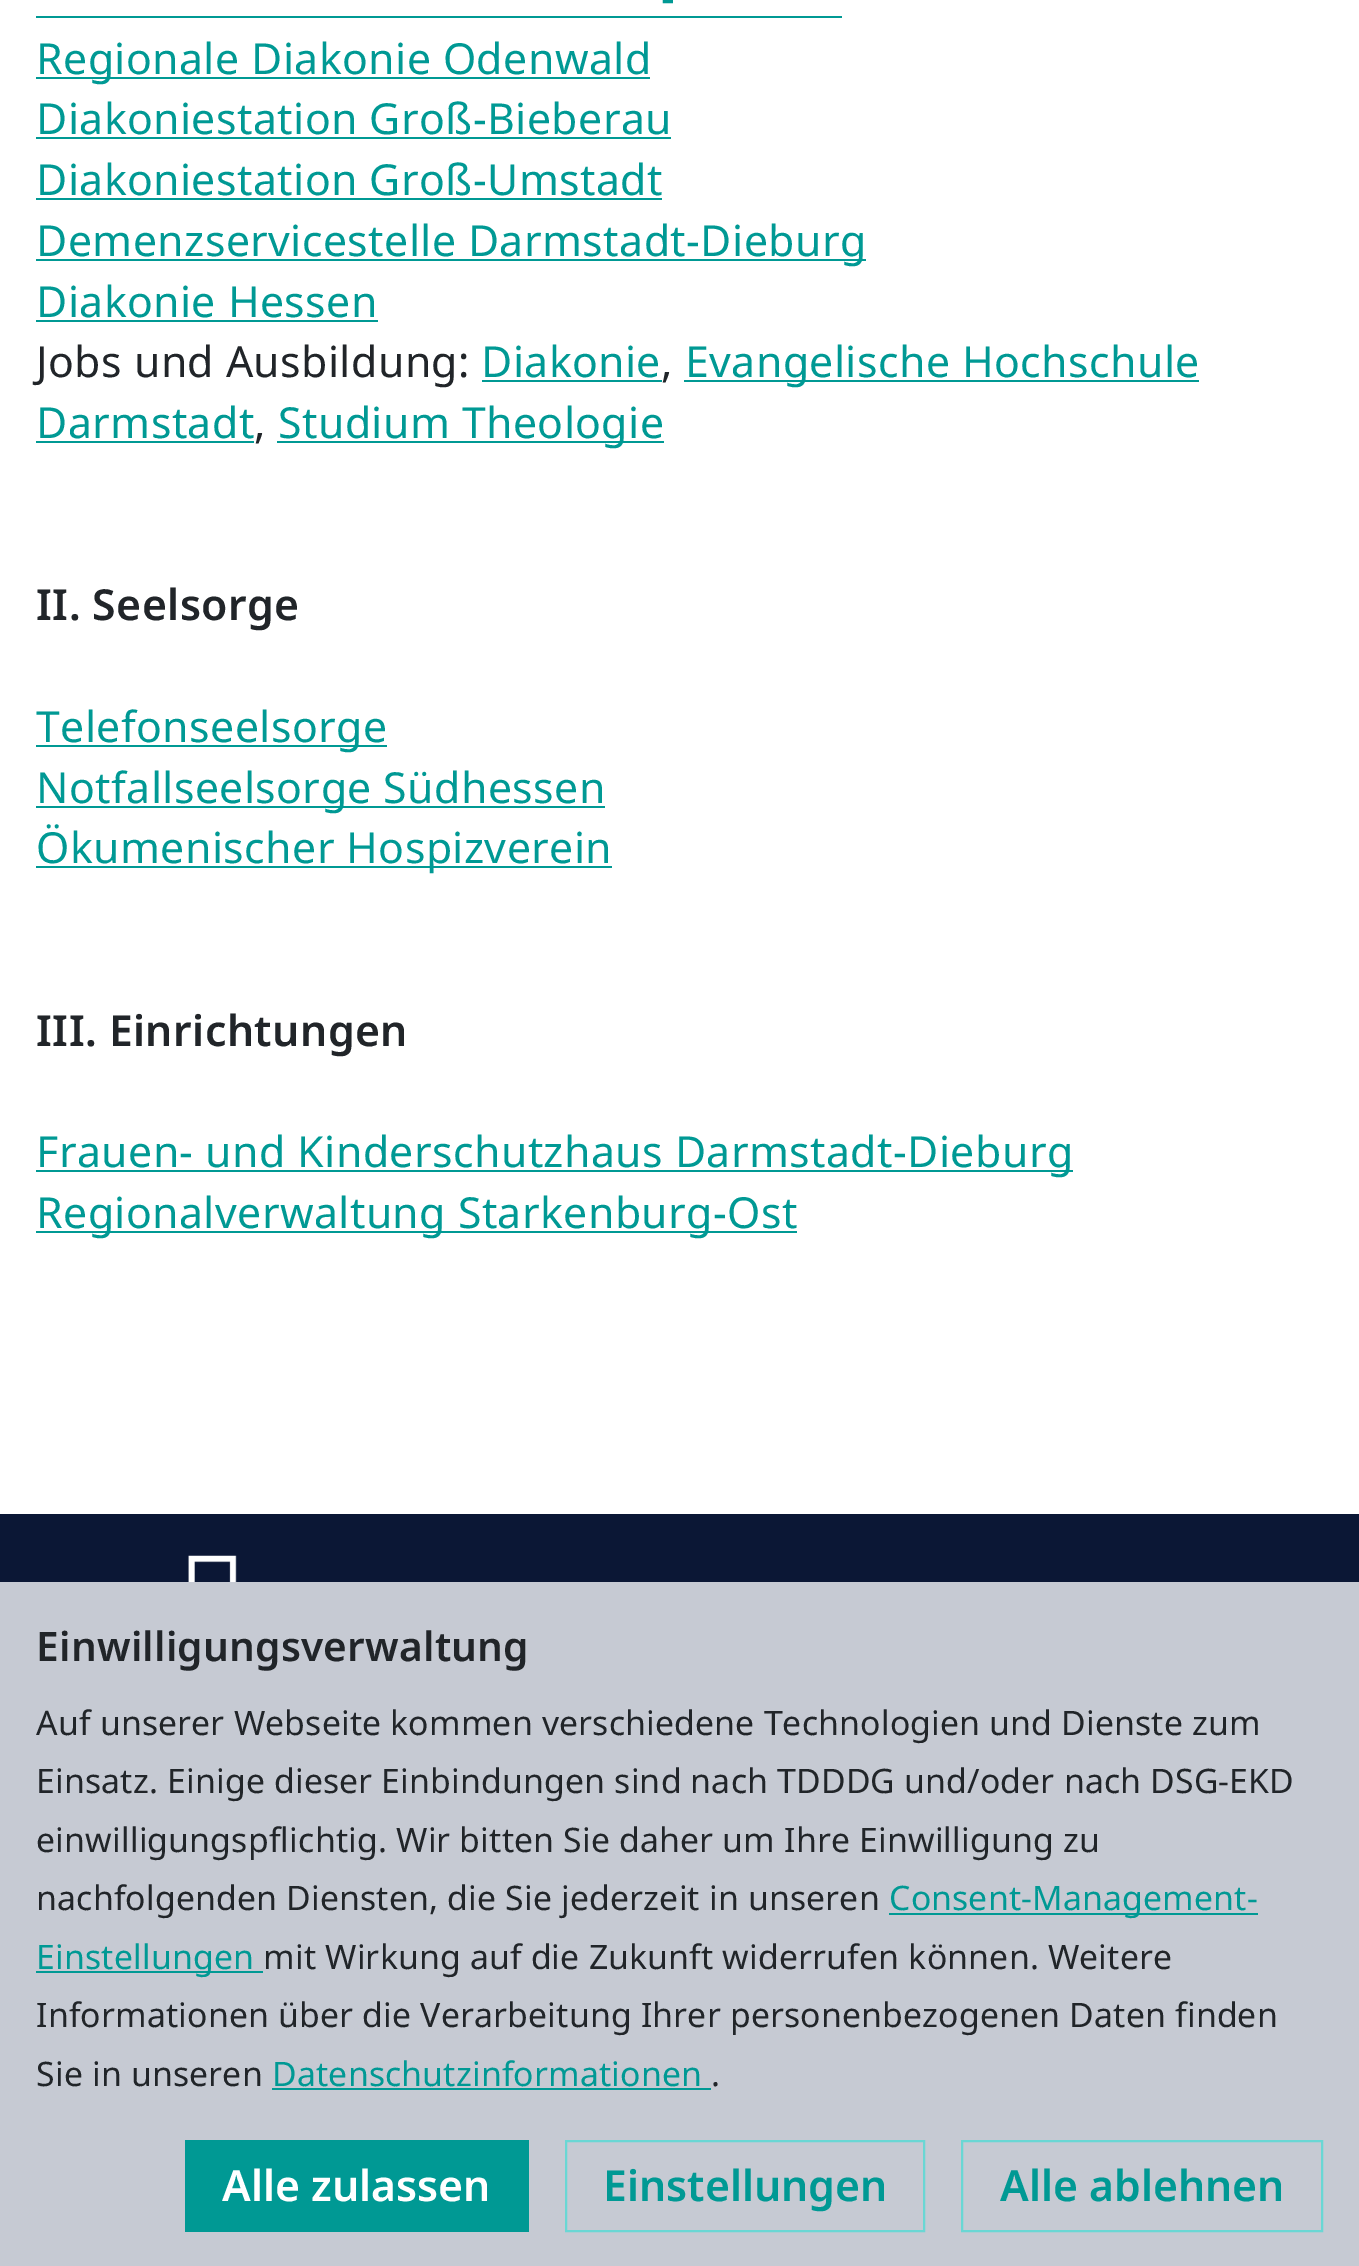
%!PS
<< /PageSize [1359 2266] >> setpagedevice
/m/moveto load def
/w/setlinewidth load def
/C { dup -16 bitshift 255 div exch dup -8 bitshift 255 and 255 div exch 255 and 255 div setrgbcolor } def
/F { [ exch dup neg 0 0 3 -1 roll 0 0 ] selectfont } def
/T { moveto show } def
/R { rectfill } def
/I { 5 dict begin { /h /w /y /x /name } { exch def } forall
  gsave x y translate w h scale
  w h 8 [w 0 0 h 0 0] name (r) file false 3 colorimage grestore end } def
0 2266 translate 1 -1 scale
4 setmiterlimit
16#FFFFFF C
0 0 1359 2266 R
/NotoSans-Regular 42.75 F
16#009994 C
661 13 m .45 0 (-) ashow
36 16 806 2 R
36 77 614 2 R
36 74 m .45 0 (Regionale Diakonie Odenwald) ashow
36 134 m .45 0 (Diakoniestation Groß-Bieberau) ashow
36 137 635 2 R
36 195 m .45 0 (Diakoniestation Groß-Umstadt) ashow
36 198 626 2 R
36 259 830 2 R
36 256 m .45 0 (Demenzservicestelle Darmstadt-Dieburg) ashow
36 317 m .45 0 (Diakonie Hessen) ashow
36 320 342 2 R
16#212529 C
36 377 m .45 0 (Jobs und Ausbildung:) ashow
16#009994 C
481 377 m .45 0 (Diakonie) ashow
482 380 180 2 R
16#212529 C
661 377 m .45 0 (,) ashow
16#009994 C
684 380 515 2 R
685 377 m .45 0 (Evangelische Hochschule) ashow
36 438 m .45 0 (Darmstadt) ashow
36 441 218 2 R
16#212529 C
254 438 m .45 0 (,) ashow
16#009994 C
277 441 387 2 R
278 438 m .45 0 (Studium Theologie) ashow
/NotoSans-SemiBold 42.75 F
16#212529 C
36 620 m .45 0 (II. Seelsorge) ashow
16#009994 C
36 745 351 2 R
/NotoSans-Regular 42.75 F
36 742 m .45 0 (Telefonseelsorge) ashow
36 806 569 2 R
36 803 m .45 0 (Notfallseelsorge Südhessen) ashow
36 866 576 2 R
36 863 m .45 0 (Ökumenischer Hospizverein) ashow
/NotoSans-SemiBold 42.75 F
16#212529 C
36 1046 m .45 0 (III. Einrichtungen) ashow
16#009994 C
36 1170 1037 2 R
/NotoSans-Regular 42.75 F
36 1167 m .45 0 (Frauen- und Kinderschutzhaus Darmstadt-Dieburg) ashow
36 1231 761 2 R
36 1228 m .45 0 (Regionalverwaltung Starkenburg-Ost) ashow
16#0B1735 C
0 1514 1359 68 R
(1.rgb) 129 1555 633 27 I
16#C6CAD3 C
0 1582 1359 684 R
/NotoSans-SemiBold 40.5 F
16#212529 C
36 1661 m .25 0 (Einwilligungsverwaltung) ashow
/NotoSans-Regular 33.75 F
36 1735 m .18 0 (Auf unserer Webseite kommen verschiedene Technologien und Dienste zum) ashow
36 1793 m .18 0 (Einsatz. Einige dieser Einbindungen sind nach TDDDG und/oder nach DSG-EKD) ashow
36 1852 m .18 0 (einwilligungspflichtig. Wir bitten Sie daher um Ihre Einwilligung zu) ashow
36 1910 m .18 0 (nachfolgenden Diensten, die Sie jederzeit in unseren) ashow
16#009994 C
889 1913 369 2 R
889 1910 m .18 0 (Consent-Management-) ashow
36 1971 227 2 R
36 1969 m .18 0 (Einstellungen) ashow
16#212529 C
263 1969 m .18 0 (mit Wirkung auf die Zukunft widerrufen können. Weitere) ashow
36 2027 m .18 0 (Informationen über die Verarbeitung Ihrer personenbezogenen Daten finden) ashow
36 2086 m .18 0 (Sie in unseren) ashow
16#009994 C
272 2086 m .18 0 (Datenschutzinformationen) ashow
272 2088 439 2 R
16#212529 C
711 2086 m .18 0 (.) ashow
16#009994 C
185 2140 344 92 R
/NotoSans-SemiBold 42.75 F
16#FFFFFF C
(Alle zulassen) 222 2201 T
16#6AD7D4 C
2 w
566 2141 358 90 rectstroke
16#009994 C
(Einstellungen) 603 2201 T
16#6AD7D4 C
962 2141 360 90 rectstroke
16#009994 C
(Alle ablehnen) 1000 2201 T
showpage
